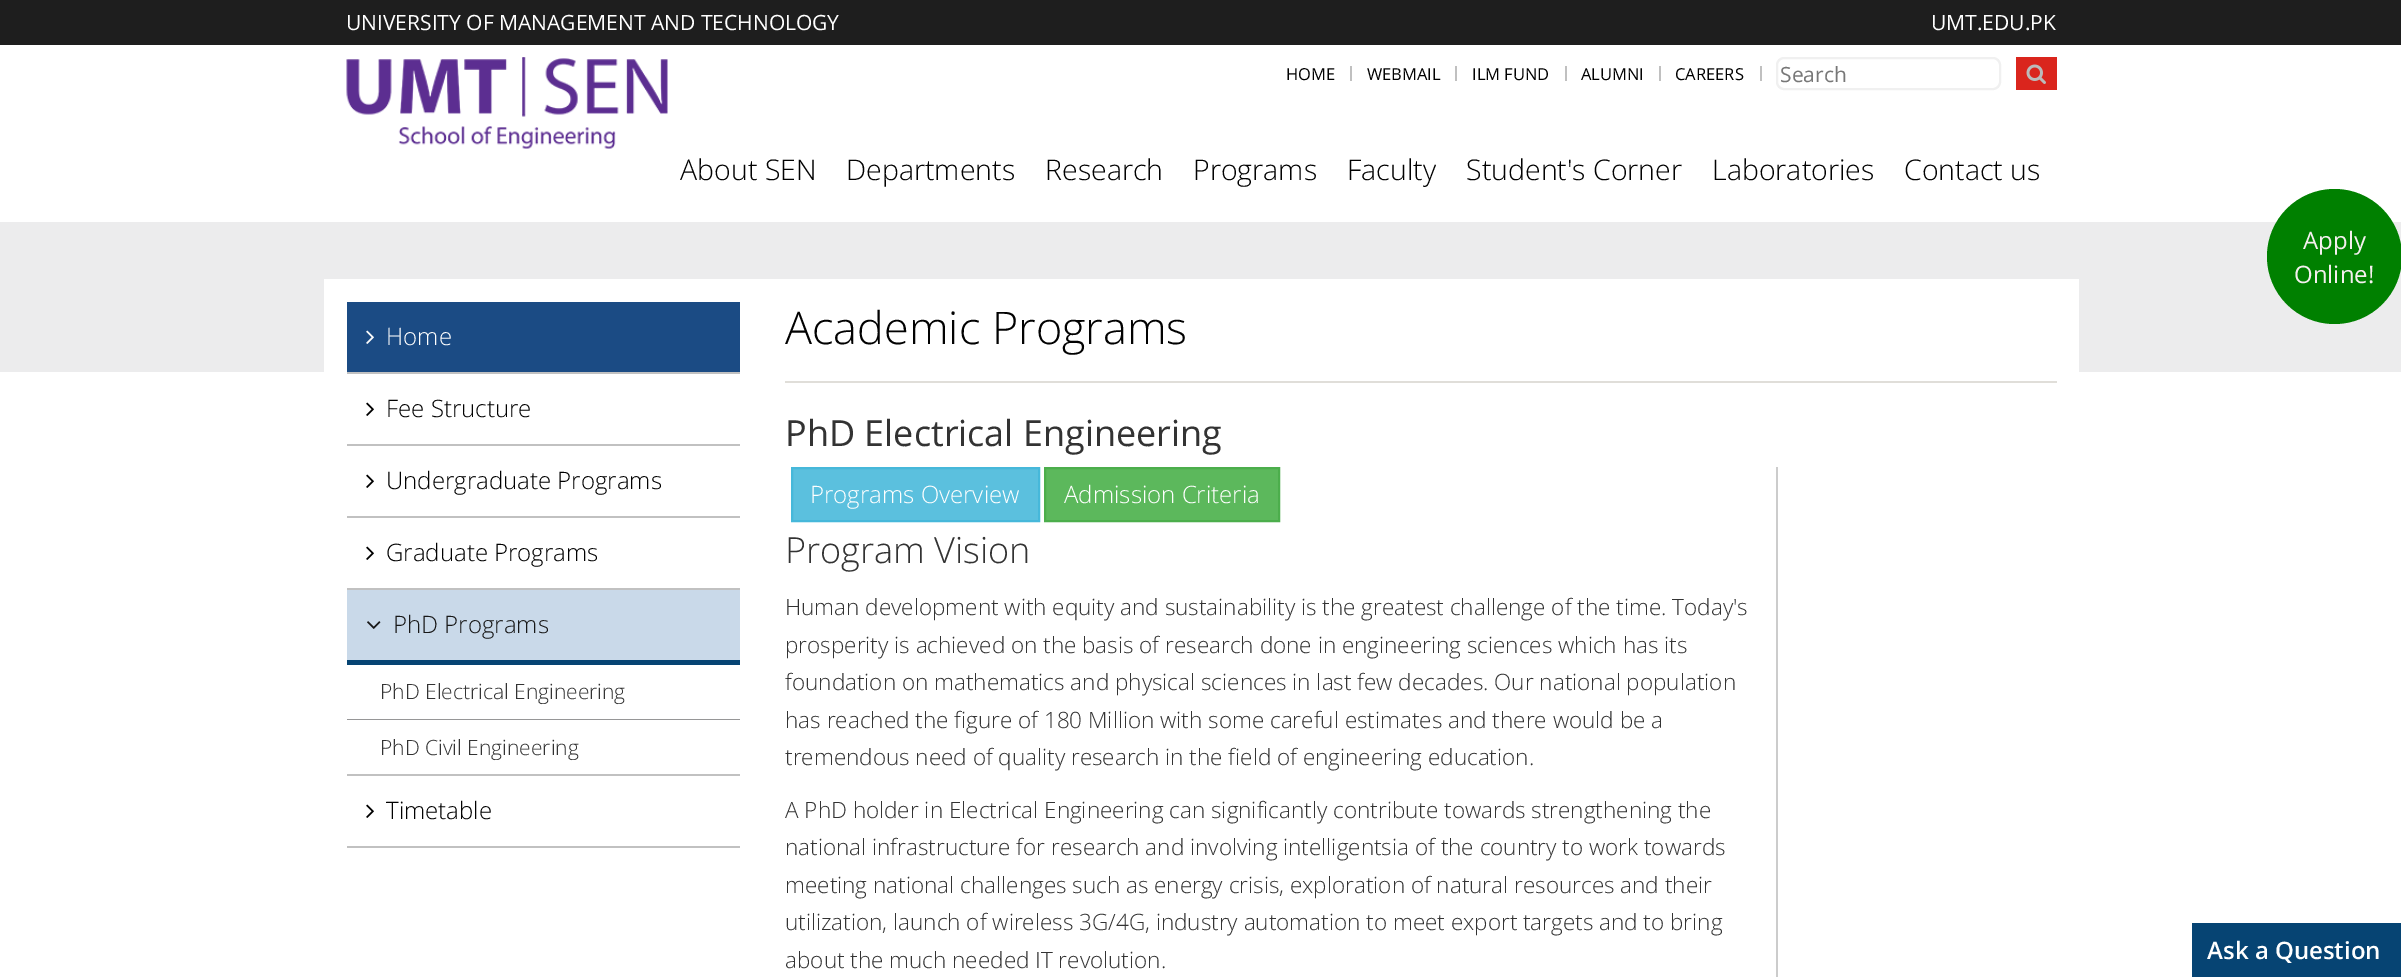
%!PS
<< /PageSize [2401 977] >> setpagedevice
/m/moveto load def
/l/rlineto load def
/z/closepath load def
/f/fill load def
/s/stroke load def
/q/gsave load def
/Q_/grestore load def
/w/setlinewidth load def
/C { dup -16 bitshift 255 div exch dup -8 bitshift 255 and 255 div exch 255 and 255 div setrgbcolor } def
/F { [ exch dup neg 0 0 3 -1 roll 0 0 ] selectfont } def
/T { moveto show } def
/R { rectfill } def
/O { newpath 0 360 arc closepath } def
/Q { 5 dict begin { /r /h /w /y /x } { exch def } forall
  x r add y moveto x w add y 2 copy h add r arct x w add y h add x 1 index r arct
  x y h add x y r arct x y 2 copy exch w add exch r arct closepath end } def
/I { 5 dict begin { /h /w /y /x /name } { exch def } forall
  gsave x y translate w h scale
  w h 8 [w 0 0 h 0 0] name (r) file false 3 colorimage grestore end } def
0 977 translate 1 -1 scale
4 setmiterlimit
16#FFFFFF C
0 0 2401 977 R
16#1E1E1E C
0 0 2401 45 R
/OpenSans-Regular 21 F
16#FFFFFF C
(UNIVERSITY OF MANAGEMENT AND TECHNOLOGY) 346 30 T
(UMT.EDU.PK) 1931 30 T
/OpenSans-Regular 16.5 F
16#010101 C
(HOME) 1286 80 T
16#C0C0C0 C
1350 66 2 15 R
16#010101 C
(WEBMAIL) 1367 80 T
16#C0C0C0 C
1455 66 2 15 R
16#010101 C
(ILM FUND) 1472 80 T
16#C0C0C0 C
1565 66 2 15 R
16#010101 C
(ALUMNI) 1581 80 T
16#C0C0C0 C
1659 66 2 15 R
16#010101 C
(CAREERS) 1675 80 T
16#C0C0C0 C
1760 66 2 15 R
16#F0F0F0 C
2 w
1777 58 223 31 7 Q s
/OpenSans-Regular 21 F
16#777777 C
(Search) 1780 82 T
16#DA251D C
2016 57 41 33 R
(1.rgb) 2026 64 20 20 I
(2.rgb) 346 57 322 92 I
/OpenSans-Light 28.5 F
16#010101 C
(About SEN) 680 180 T
(Departments) 846 180 T
(Research) 1045 180 T
(Programs) 1193 180 T
(Faculty) 1347 180 T
(Student's Corner) 1466 180 T
(Laboratories) 1712 180 T
(Contact us) 1904 180 T
16#ECECED C
0 222 2401 150 R
16#008000 C
2334.5 256.5 67.5 O f
/OpenSans-Regular 24 F
16#F5EFEF C
(Apply) 2303 249 T
(Online!) 2294 283 T
16#FFFFFF C
324 279 1755 93 R
16#C1C1C1 C
347 372 393 2 R
16#1B4B84 C
347 302 393 70 R
(3.rgb) 366 330 8 14 I
/OpenSans-Light 24 F
16#FFFFFF C
(Home) 386 345 T
16#C1C1C1 C
347 444 393 2 R
(4.rgb) 366 402 8 14 I
16#010101 C
(Fee Structure) 386 417 T
16#C1C1C1 C
347 516 393 2 R
(4.rgb) 366 474 8 14 I
16#010101 C
(Undergraduate Programs) 386 489 T
16#C1C1C1 C
347 588 393 2 R
(4.rgb) 366 546 8 14 I
16#010101 C
(Graduate Programs) 386 561 T
16#C1C1C1 C
347 774 393 2 R
16#C9D9E9 C
347 590 393 70 R
(5.rgb) 367 621 14 8 I
16#181818 C
(PhD Programs) 393 633 T
16#064473 C
347 660 393 5 R
16#969697 C
347 719 393 1 R
/OpenSans-Light 21 F
16#333333 C
(PhD Electrical Engineering) 380 699 T
(PhD Civil Engineering) 380 755 T
16#C1C1C1 C
347 846 393 2 R
(4.rgb) 366 804 8 14 I
/OpenSans-Light 24 F
16#010101 C
(Timetable) 386 819 T
16#E0DED9 C
785 381 1272 2 R
/OpenSans-Light 45 F
16#010101 C
(Academic Programs) 785 344 T
/OpenSans-Regular 36 F
16#333333 C
(PhD Electrical Engineering) 785 446 T
16#5BC0DE C
792 468 m 247 0 l 0 53 l -247 0 l z q f Q_
16#46B8DA C
s
/OpenSans-Light 24 F
16#FFFFFF C
(Programs Overview) 810 503 T
16#5CB85C C
1045 468 m 234 0 l 0 53 l -234 0 l z q f Q_
16#4CAE4C C
s
16#FFFFFF C
(Admission Criteria) 1064 503 T
/OpenSans-Light 36 F
16#333333 C
(Program Vision) 785 563 T
/OpenSans-Light 22.5 F
(Human development with equity and sustainability is the greatest challenge of the time. Today's) 785 615 T
(prosperity is achieved on the basis of research done in engineering sciences which has its) 785 653 T
(foundation on mathematics and physical sciences in last few decades. Our national population) 785 690 T
(has reached the figure of 180 Million with some careful estimates and there would be a) 785 728 T
(tremendous need of quality research in the field of engineering education.) 785 765 T
(A PhD holder in Electrical Engineering can significantly contribute towards strengthening the) 785 818 T
(national infrastructure for research and involving intelligentsia of the country to work towards) 785 855 T
(meeting national challenges such as energy crisis, exploration of natural resources and their) 785 893 T
(utilization, launch of wireless 3G/4G, industry automation to meet export targets and to bring) 785 930 T
(about the much needed IT revolution.) 785 968 T
16#CCCCCC C
1776 467 2 510 R
16#064473 C
2192 923 209 54 R
/OpenSans-SemiBold 24 F
16#FFFFFF C
(Ask a Question) 2207 959 T
showpage
